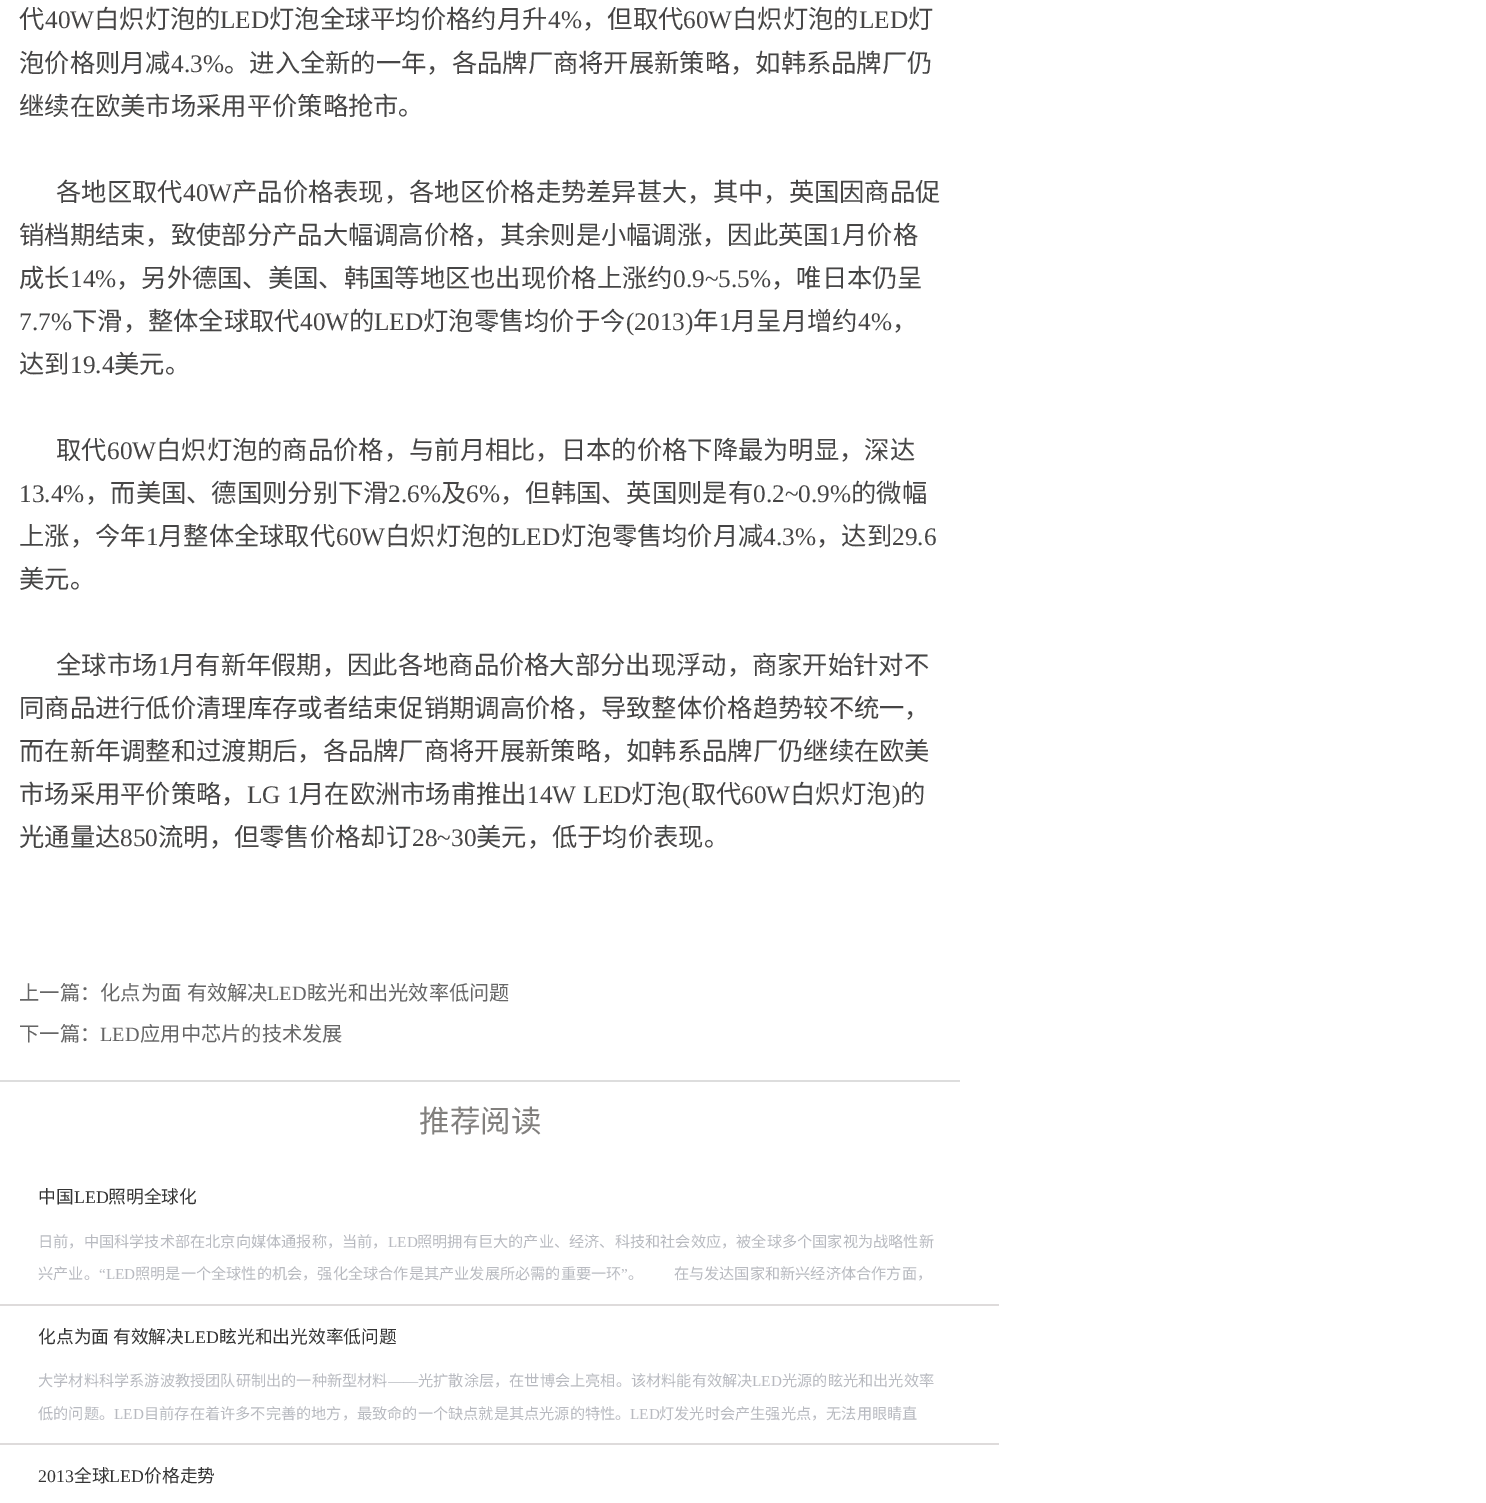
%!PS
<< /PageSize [1486 1503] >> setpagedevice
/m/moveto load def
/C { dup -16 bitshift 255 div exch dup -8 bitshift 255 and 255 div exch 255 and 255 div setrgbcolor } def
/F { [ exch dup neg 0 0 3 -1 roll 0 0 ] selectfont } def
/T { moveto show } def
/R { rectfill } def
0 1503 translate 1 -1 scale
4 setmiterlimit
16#FFFFFF C
0 0 1486 1503 R
/NotoSansCJKSC-Regular 25.3 F
16#464545 C
(代) 19 28 T
/LiberationSerif-Regular 25.3 F
(40W) 45 28 T
/NotoSansCJKSC-Regular 25.3 F
(白炽灯泡的) 94 28 T
/LiberationSerif-Regular 25.3 F
(LED) 220 28 T
/NotoSansCJKSC-Regular 25.3 F
(灯泡全球平均价格约月升) 269 28 T
/LiberationSerif-Regular 25.3 F
(4%) 548 28 T
/NotoSansCJKSC-Regular 25.3 F
(，但取代) 582 28 T
/LiberationSerif-Regular 25.3 F
(60W) 683 28 T
/NotoSansCJKSC-Regular 25.3 F
(白炽灯泡的) 732 28 T
/LiberationSerif-Regular 25.3 F
(LED) 859 28 T
/NotoSansCJKSC-Regular 25.3 F
(灯) 908 28 T
(泡价格则月减) 19 72 T
/LiberationSerif-Regular 25.3 F
(4.3%) 171 72 T
/NotoSansCJKSC-Regular 25.3 F
(。进入全新的一年，各品牌厂商将开展新策略，如韩系品牌厂仍) 224 72 T
(继续在欧美市场采用平价策略抢市。) 19 115 T
(各地区取代) 56 201 T
/LiberationSerif-Regular 25.3 F
(40W) 183 201 T
/NotoSansCJKSC-Regular 25.3 F
(产品价格表现，各地区价格走势差异甚大，其中，英国因商品促) 232 201 T
(销档期结束，致使部分产品大幅调高价格，其余则是小幅调涨，因此英国) 19 244 T
/LiberationSerif-Regular 25.3 F
(1) 829 244 T
/NotoSansCJKSC-Regular 25.3 F
(月价格) 842 244 T
(成长) 19 287 T
/LiberationSerif-Regular 25.3 F
(14%) 70 287 T
/NotoSansCJKSC-Regular 25.3 F
(，另外德国、美国、韩国等地区也出现价格上涨约) 116 287 T
/LiberationSerif-Regular 25.3 F
(0.9~5.5%) 673 287 T
/NotoSansCJKSC-Regular 25.3 F
(，唯日本仍呈) 771 287 T
/LiberationSerif-Regular 25.3 F
(7.7%) 19 330 T
/NotoSansCJKSC-Regular 25.3 F
(下滑，整体全球取代) 72 330 T
/LiberationSerif-Regular 25.3 F
(40W) 300 330 T
/NotoSansCJKSC-Regular 25.3 F
(的) 349 330 T
/LiberationSerif-Regular 25.3 F
(LED) 374 330 T
/NotoSansCJKSC-Regular 25.3 F
(灯泡零售均价于今) 423 330 T
/LiberationSerif-Regular 25.3 F
(\(2013\)) 626 330 T
/NotoSansCJKSC-Regular 25.3 F
(年) 693 330 T
/LiberationSerif-Regular 25.3 F
(1) 719 330 T
/NotoSansCJKSC-Regular 25.3 F
(月呈月增约) 731 330 T
/LiberationSerif-Regular 25.3 F
(4%) 858 330 T
/NotoSansCJKSC-Regular 25.3 F
(，) 892 330 T
(达到) 19 373 T
/LiberationSerif-Regular 25.3 F
(19.4) 70 373 T
/NotoSansCJKSC-Regular 25.3 F
(美元。) 114 373 T
(取代) 56 459 T
/LiberationSerif-Regular 25.3 F
(60W) 107 459 T
/NotoSansCJKSC-Regular 25.3 F
(白炽灯泡的商品价格，与前月相比，日本的价格下降最为明显，深达) 156 459 T
/LiberationSerif-Regular 25.3 F
(13.4%) 19 502 T
/NotoSansCJKSC-Regular 25.3 F
(，而美国、德国则分别下滑) 85 502 T
/LiberationSerif-Regular 25.3 F
(2.6%) 388 502 T
/NotoSansCJKSC-Regular 25.3 F
(及) 441 502 T
/LiberationSerif-Regular 25.3 F
(6%) 466 502 T
/NotoSansCJKSC-Regular 25.3 F
(，但韩国、英国则是有) 500 502 T
/LiberationSerif-Regular 25.3 F
(0.2~0.9%) 753 502 T
/NotoSansCJKSC-Regular 25.3 F
(的微幅) 851 502 T
(上涨，今年) 19 545 T
/LiberationSerif-Regular 25.3 F
(1) 146 545 T
/NotoSansCJKSC-Regular 25.3 F
(月整体全球取代) 158 545 T
/LiberationSerif-Regular 25.3 F
(60W) 336 545 T
/NotoSansCJKSC-Regular 25.3 F
(白炽灯泡的) 385 545 T
/LiberationSerif-Regular 25.3 F
(LED) 511 545 T
/NotoSansCJKSC-Regular 25.3 F
(灯泡零售均价月减) 561 545 T
/LiberationSerif-Regular 25.3 F
(4.3%) 763 545 T
/NotoSansCJKSC-Regular 25.3 F
(，达到) 816 545 T
/LiberationSerif-Regular 25.3 F
(29.6) 892 545 T
/NotoSansCJKSC-Regular 25.3 F
(美元。) 19 588 T
(全球市场) 56 674 T
/LiberationSerif-Regular 25.3 F
(1) 158 674 T
/NotoSansCJKSC-Regular 25.3 F
(月有新年假期，因此各地商品价格大部分出现浮动，商家开始针对不) 170 674 T
(同商品进行低价清理库存或者结束促销期调高价格，导致整体价格趋势较不统一，) 19 717 T
(而在新年调整和过渡期后，各品牌厂商将开展新策略，如韩系品牌厂仍继续在欧美) 19 760 T
(市场采用平价策略，) 19 803 T
/LiberationSerif-Regular 25.3 F
(LG 1) 247 803 T
/NotoSansCJKSC-Regular 25.3 F
(月在欧洲市场甫推出) 299 803 T
/LiberationSerif-Regular 25.3 F
(14W LED) 527 803 T
/NotoSansCJKSC-Regular 25.3 F
(灯泡) 631 803 T
/LiberationSerif-Regular 25.3 F
(\() 682 803 T
/NotoSansCJKSC-Regular 25.3 F
(取代) 691 803 T
/LiberationSerif-Regular 25.3 F
(60W) 741 803 T
/NotoSansCJKSC-Regular 25.3 F
(白炽灯泡) 790 803 T
/LiberationSerif-Regular 25.3 F
(\)) 892 803 T
/NotoSansCJKSC-Regular 25.3 F
(的) 900 803 T
(光通量达) 19 846 T
/LiberationSerif-Regular 25.3 F
(850) 120 846 T
/NotoSansCJKSC-Regular 25.3 F
(流明，但零售价格却订) 158 846 T
/LiberationSerif-Regular 25.3 F
(28~30) 412 846 T
/NotoSansCJKSC-Regular 25.3 F
(美元，低于均价表现。) 476 846 T
/NotoSansCJKSC-Regular 20.25 F
16#666666 C
(上一篇：) 19 1000 T
100 1000 m 1 0 32 (化点为面 有效解决) widthshow
/LiberationSerif-Regular 20.25 F
(LED) 267 1000 T
/NotoSansCJKSC-Regular 20.25 F
(眩光和出光效率低问题) 307 1000 T
(下一篇：) 19 1041 T
/LiberationSerif-Regular 20.25 F
(LED) 100 1041 T
/NotoSansCJKSC-Regular 20.25 F
(应用中芯片的技术发展) 140 1041 T
16#DDDDDD C
0 1080 960 2 R
/NotoSansCJKSC-Regular 30.5 F
16#817F7D C
(推荐阅读) 419 1132 T
16#DEDBDB C
0 1304 999 2 R
/NotoSansCJKSC-Regular 17.75 F
16#333333 C
(中国) 38 1203 T
/LiberationSerif-Regular 17.75 F
(LED) 74 1203 T
/NotoSansCJKSC-Regular 17.75 F
(照明全球化) 108 1203 T
/NotoSansCJKSC-Regular 15.2 F
16#B8BAC0 C
(日前，中国科学技术部在北京向媒体通报称，当前，) 38 1247 T
/LiberationSerif-Regular 15.2 F
(LED) 388 1247 T
/NotoSansCJKSC-Regular 15.2 F
(照明拥有巨大的产业、经济、科技和社会效应，被全球多个国家视为战略性新) 417 1247 T
(兴产业。) 38 1279 T
/LiberationSerif-Regular 15.2 F
(“LED) 99 1279 T
/NotoSansCJKSC-Regular 15.2 F
(照明是一个全球性的机会，强化全球合作是其产业发展所必需的重要一环) 135 1279 T
/LiberationSerif-Regular 15.2 F
(”) 621 1279 T
/NotoSansCJKSC-Regular 15.2 F
(。　　在与发达国家和新兴经济体合作方面，) 628 1279 T
16#DEDBDB C
0 1443 999 2 R
/NotoSansCJKSC-Regular 17.75 F
16#333333 C
(化点为面 有效解决) 38 1343 T
/LiberationSerif-Regular 17.75 F
(LED) 184 1343 T
/NotoSansCJKSC-Regular 17.75 F
(眩光和出光效率低问题) 219 1343 T
/NotoSansCJKSC-Regular 15.2 F
16#B8BAC0 C
(大学材料科学系游波教授团队研制出的一种新型材料) 38 1386 T
/LiberationSerif-Regular 15.2 F
(——) 388 1386 T
/NotoSansCJKSC-Regular 15.2 F
(光扩散涂层，在世博会上亮相。该材料能有效解决) 418 1386 T
/LiberationSerif-Regular 15.2 F
(LED) 752 1386 T
/NotoSansCJKSC-Regular 15.2 F
(光源的眩光和出光效率) 782 1386 T
(低的问题。) 38 1419 T
/LiberationSerif-Regular 15.2 F
(LED) 114 1419 T
/NotoSansCJKSC-Regular 15.2 F
(目前存在着许多不完善的地方，最致命的一个缺点就是其点光源的特性。) 144 1419 T
/LiberationSerif-Regular 15.2 F
(LED) 630 1419 T
/NotoSansCJKSC-Regular 15.2 F
(灯发光时会产生强光点，无法用眼睛直) 659 1419 T
/LiberationSerif-Regular 17.75 F
16#333333 C
(2013) 38 1482 T
/NotoSansCJKSC-Regular 17.75 F
(全球) 74 1482 T
/LiberationSerif-Regular 17.75 F
(LED) 109 1482 T
/NotoSansCJKSC-Regular 17.75 F
(价格走势) 144 1482 T
showpage
